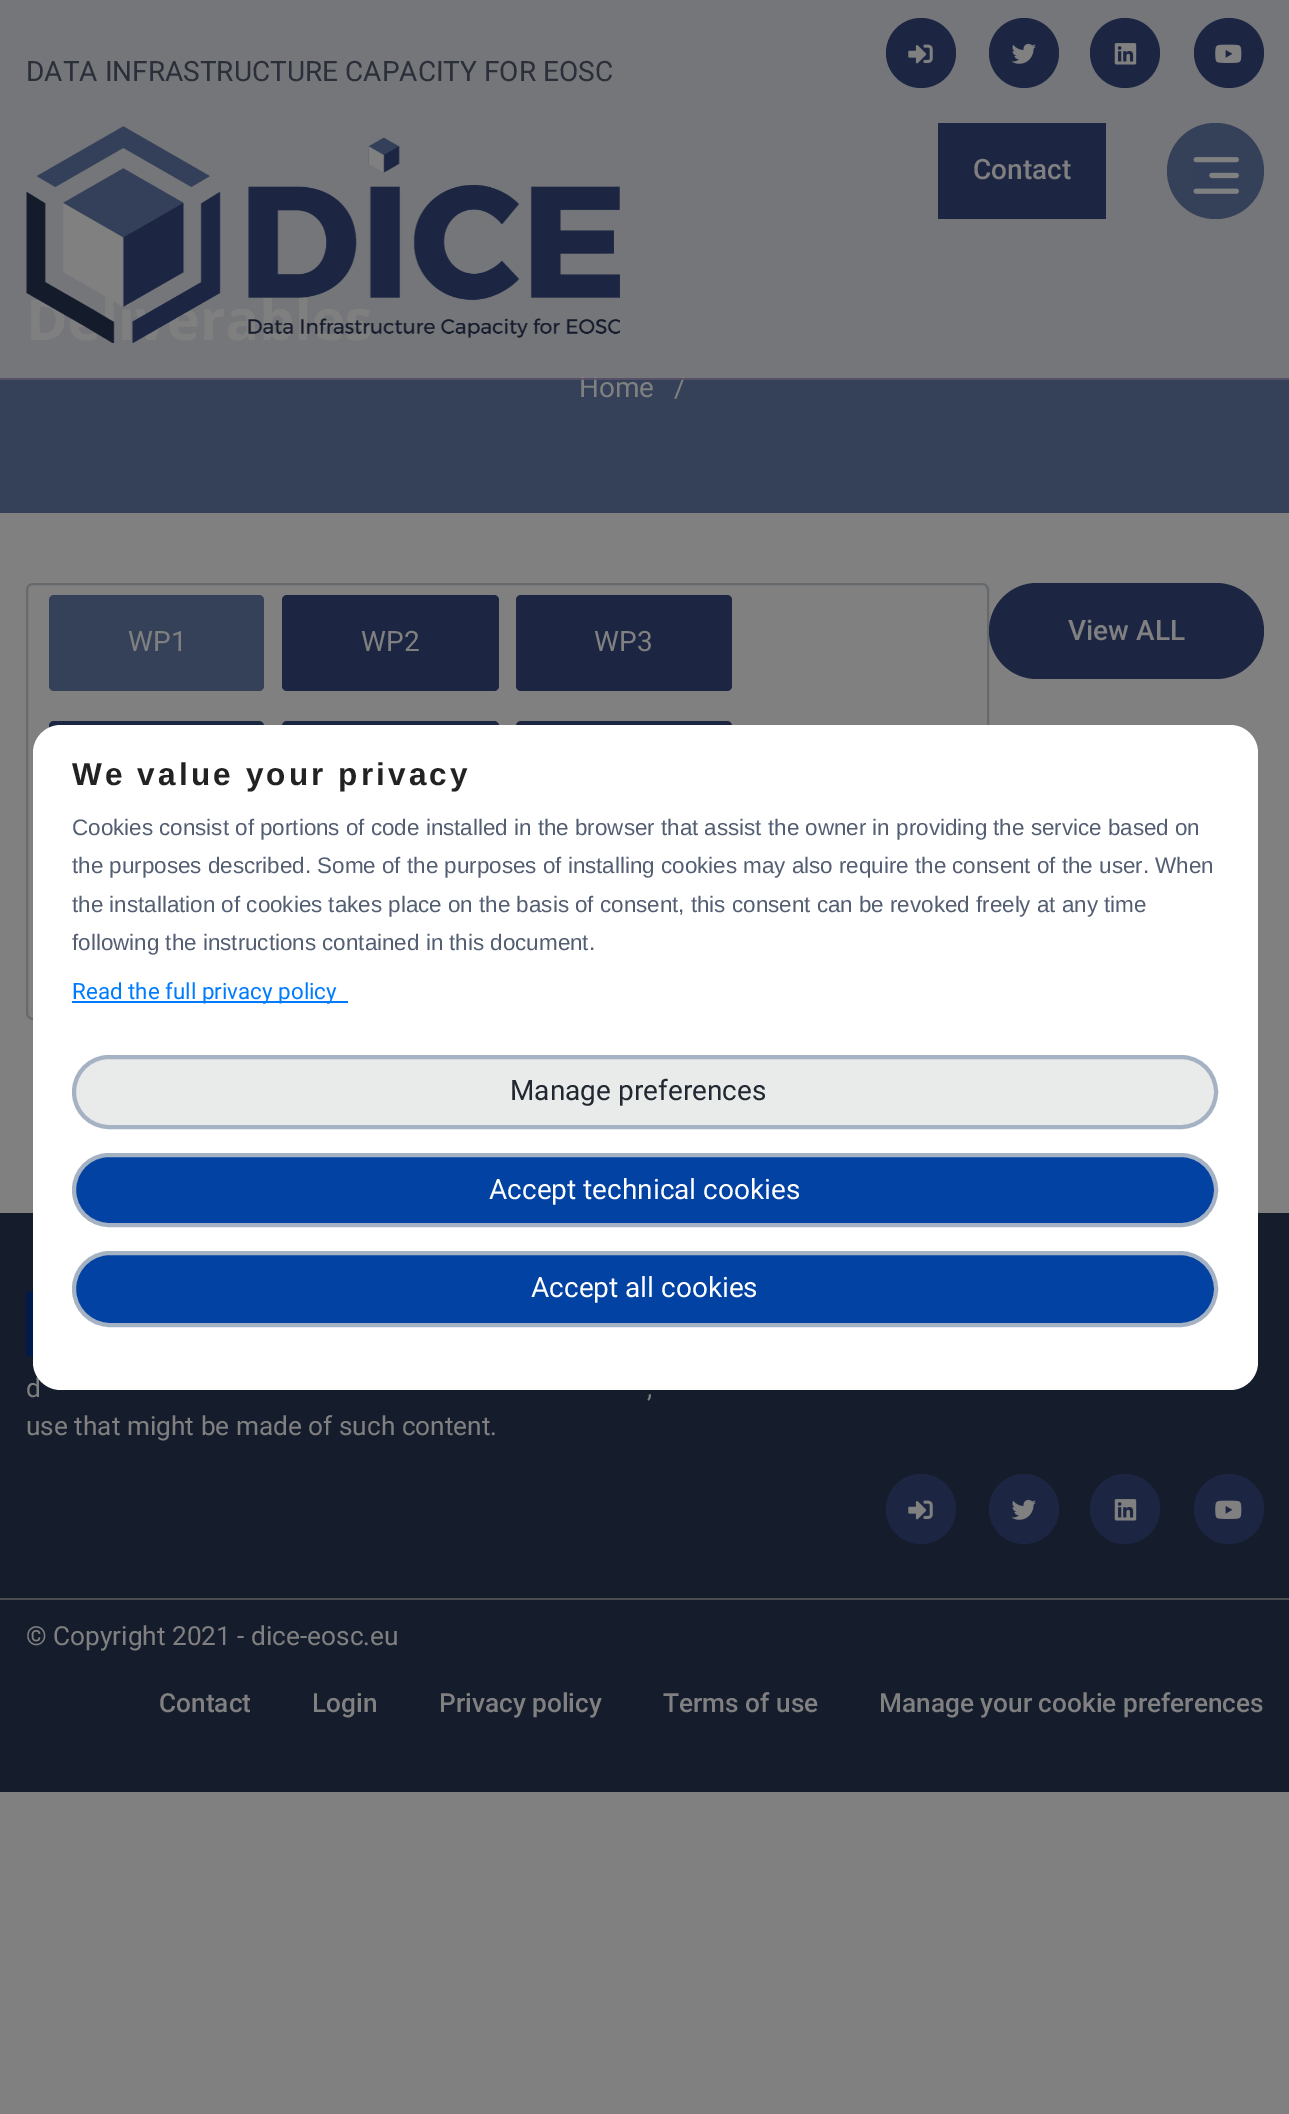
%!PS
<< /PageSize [1289 2114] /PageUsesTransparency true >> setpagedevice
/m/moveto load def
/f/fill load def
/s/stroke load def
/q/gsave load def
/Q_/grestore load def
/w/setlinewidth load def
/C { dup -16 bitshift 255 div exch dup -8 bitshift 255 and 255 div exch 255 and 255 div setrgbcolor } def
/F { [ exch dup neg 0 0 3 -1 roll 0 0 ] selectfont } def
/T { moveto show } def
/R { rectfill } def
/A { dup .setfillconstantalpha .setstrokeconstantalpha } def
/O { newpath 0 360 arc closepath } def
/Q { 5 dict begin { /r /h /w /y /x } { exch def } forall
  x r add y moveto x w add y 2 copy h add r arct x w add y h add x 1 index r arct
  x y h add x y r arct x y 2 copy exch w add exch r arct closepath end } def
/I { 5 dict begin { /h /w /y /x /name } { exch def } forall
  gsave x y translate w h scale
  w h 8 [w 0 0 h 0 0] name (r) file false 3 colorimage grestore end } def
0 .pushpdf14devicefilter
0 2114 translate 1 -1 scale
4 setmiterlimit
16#808080 C
0 0 1289 2114 R
16#354059 C
0 0 1289 513 R
/Roboto-Regular 28 F
16#808080 C
(Home) 579 397 T
(/) 674 397 T
0.85 A
0 0 1289 380 R
0.45 A
16#30234F C
0 378 1289 2 R
1 A
16#2A2F39 C
(DATA INFRASTRUCTURE CAPACITY FOR EOSC) 26 81 T
16#1C2643 C
921 53 35 O f
(1.rgb) 908 44 25 20 I
1024 53 35 O f
(2.rgb) 1011 43 25 21 I
1125 53 35 O f
(3.rgb) 1114 43 23 22 I
1229 53 35 O f
(4.rgb) 1215 44 27 19 I
(5.rgb) 26 126 594 217 I
938 123 168 96 R
/Roboto-Medium 28 F
16#808080 C
(Contact) 973 179 T
16#354059 C
1167 123 97 96 48 Q f
(6.rgb) 1193 157 46 37 I
16#676A6D C
2 w
27 584 961 435 6 Q s
16#354059 C
49 595 215 96 5 Q f
/Roboto-Regular 28 F
16#808080 C
(WP1) 128 651 T
16#1C2643 C
282 595 217 96 5 Q f
16#808080 C
(WP2) 361 651 T
16#1C2643 C
516 595 216 96 5 Q f
16#808080 C
(WP3) 594 651 T
16#1C2643 C
49 721 215 96 5 Q f
282 721 217 96 5 Q f
516 721 216 96 5 Q f
989 583 275 96 48 Q f
/Roboto-Medium 28 F
16#808080 C
(View ALL) 1068 640 T
16#151C2C C
0 1213 1289 579 R
(7.rgb) 26 1291 7 66 I
/Roboto-Regular 26.25 F
16#808080 C
(d) 26 1397 T
(,) 647 1397 T
(use that might be made of such content.) 26 1435 T
16#1C2643 C
921 1509 35 O f
(1.rgb) 908 1500 25 20 I
1024 1509 35 O f
(2.rgb) 1011 1499 25 21 I
1125 1509 35 O f
(3.rgb) 1114 1499 23 22 I
1229 1509 35 O f
(4.rgb) 1215 1500 27 19 I
16#4A4D4F C
0 1598 1289 2 R
16#808080 C
(© Copyright 2021 - dice-eosc.eu) 26 1645 T
/Roboto-Medium 26.25 F
(Contact) 159 1712 T
(Login) 312 1712 T
(Privacy policy) 439 1712 T
(Terms of use) 663 1712 T
(Manage your cookie preferences) 879 1712 T
16#FFFFFF C
33 725 1225 665 28 Q f
/LiberationSans-Bold 31.5 F
16#222222 C
72 785 m 3.15 0 (We value your privacy) ashow
/LiberationSans-Regular 22.4 F
16#535E72 C
(Cookies consist of portions of code installed in the browser that assist the owner in providing the service based on) 72 835 T
(the purposes described. Some of the purposes of installing cookies may also require the consent of the user. When) 72 873 T
(the installation of cookies takes place on the basis of consent, this consent can be revoked freely at any time) 72 912 T
(following the instructions contained in this document.) 72 950 T
16#007BFF C
72 1001 276 2 R
/Roboto-Regular 22.4 F
(Read the full privacy policy) 72 999 T
16#E9EAEA C
74 1057 1142 70 35 Q q f Q_
16#A5B2C3 C
4 w
s
/Roboto-Regular 28 F
16#222831 C
(Manage preferences) 510 1100 T
16#0242A2 C
74 1155 1142 70 35 Q q f Q_
16#A5B2C3 C
s
16#FFFFFF C
(Accept technical cookies) 489 1199 T
16#0242A2 C
74 1253 1142 72 36 Q q f Q_
16#A5B2C3 C
s
16#FFFFFF C
(Accept all cookies) 531 1297 T
.poppdf14devicefilter showpage
